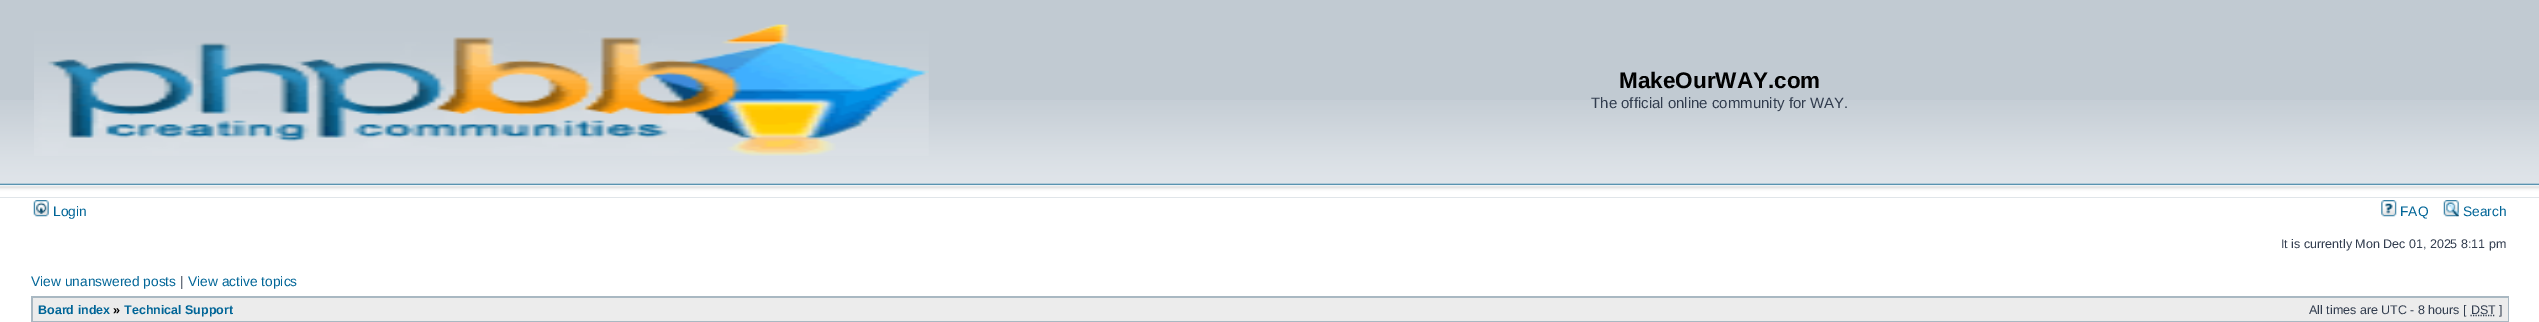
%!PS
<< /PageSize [2539 322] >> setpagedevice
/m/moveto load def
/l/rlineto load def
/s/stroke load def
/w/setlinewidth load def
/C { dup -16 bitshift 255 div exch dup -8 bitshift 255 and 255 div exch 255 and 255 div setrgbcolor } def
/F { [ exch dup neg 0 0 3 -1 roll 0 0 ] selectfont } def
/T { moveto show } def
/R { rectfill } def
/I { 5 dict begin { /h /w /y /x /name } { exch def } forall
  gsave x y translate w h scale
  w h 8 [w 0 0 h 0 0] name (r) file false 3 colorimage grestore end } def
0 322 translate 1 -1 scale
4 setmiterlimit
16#FFFFFF C
0 0 2539 322 R
16#C1CAD2 C
0 0 2539 198 R
(1.rgb) 0 100 2539 98 I
(2.rgb) 34 24 895 132 I
/LiberationSans-Bold 22.5 F
16#000000 C
(MakeOurWAY.com) 1619 88 T
/LiberationSans-Regular 15 F
16#323D4F C
(The official online community for WAY.) 1591 108 T
(3.rgb) 33 200 16 17 I
/LiberationSans-Regular 13.75 F
16#006597 C
(Login) 53 216 T
(4.rgb) 2381 200 16 17 I
(FAQ) 2400 216 T
(5.rgb) 2443 200 16 17 I
(Search) 2463 216 T
/LiberationSans-Regular 12.5 F
16#323D4F C
(It is currently Mon Dec 01, 2025 8:11 pm) 2281 248 T
/LiberationSans-Regular 13.75 F
16#006597 C
(View unanswered posts) 31 286 T
16#323D4F C
(|) 180 286 T
16#006597 C
(View active topics) 188 286 T
16#A9B8C2 C
31 296 2478 26 R
16#ECECEC C
33 298 2475 23 R
/LiberationSans-Bold 12.5 F
16#006597 C
(Board index) 38 314 T
16#000000 C
(») 113 314 T
16#006597 C
(Technical Support) 124 314 T
/LiberationSans-Regular 12.5 F
16#323D4F C
(All times are UTC - 8 hours [) 2309 314 T
1.2 w
[1.25 1.25] 0 setdash
2470.5 315.5 m 25 0 l s
(DST ]) 2471 314 T
showpage
